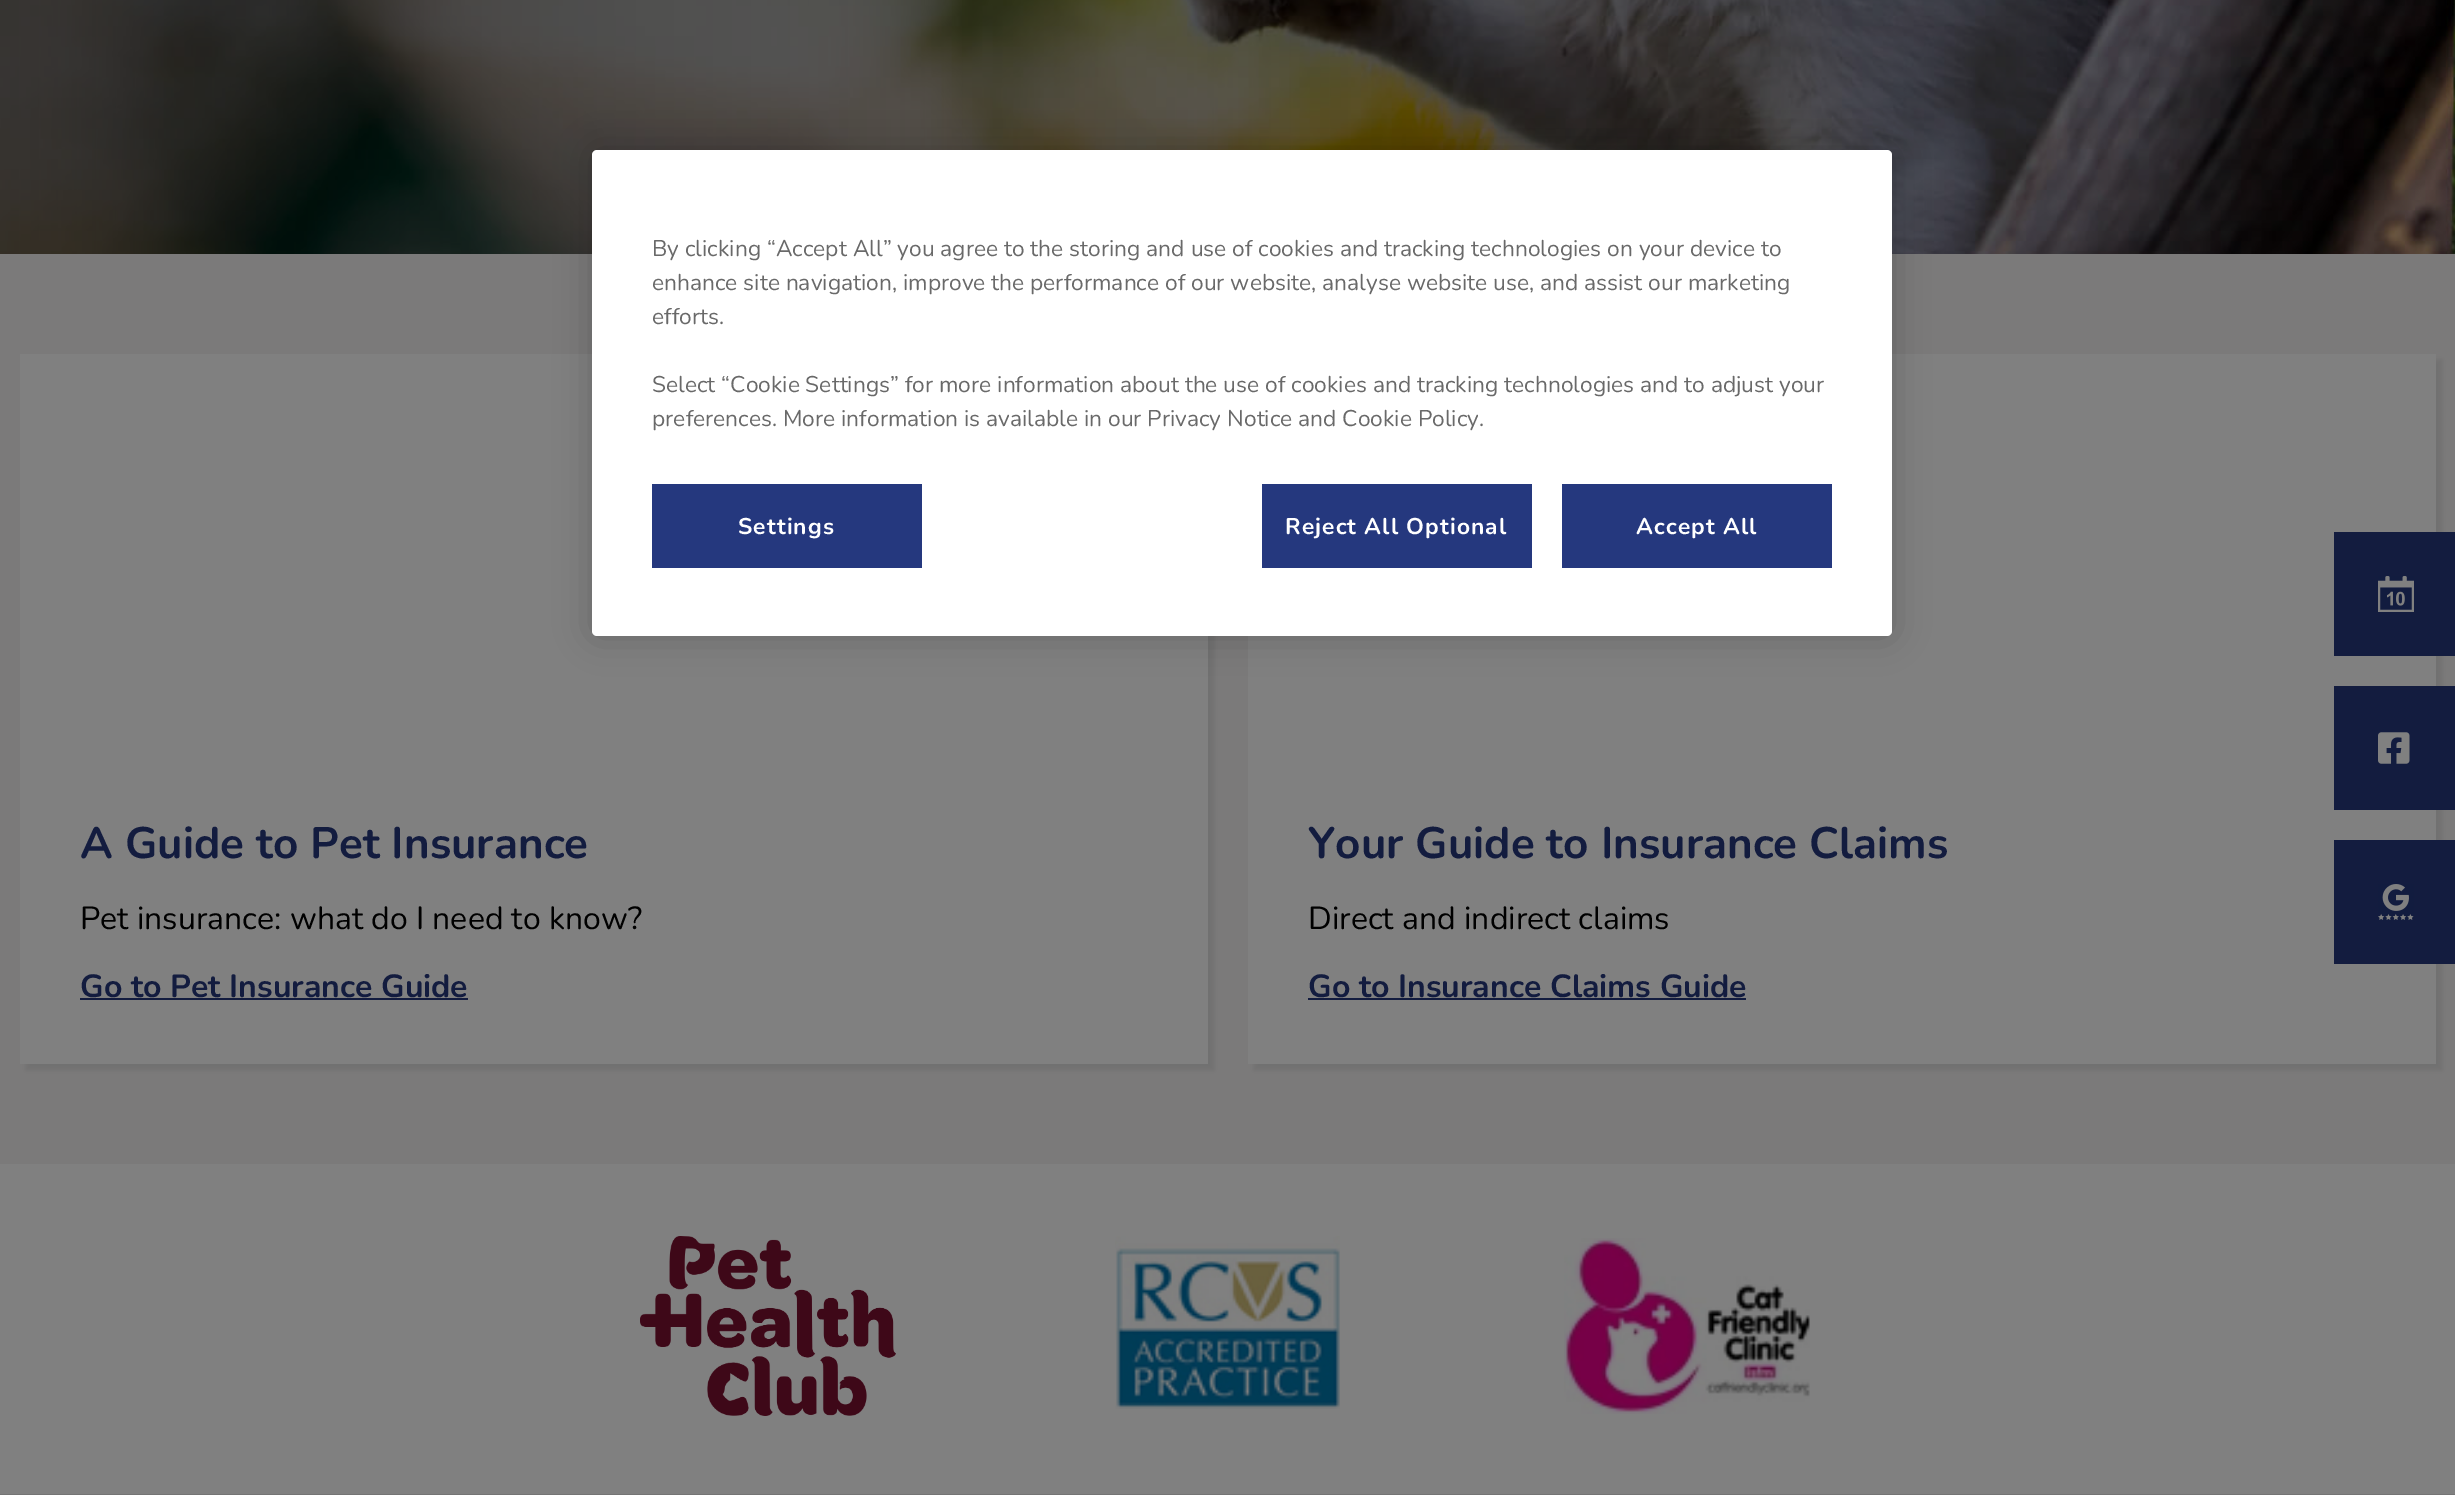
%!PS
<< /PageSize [2455 1495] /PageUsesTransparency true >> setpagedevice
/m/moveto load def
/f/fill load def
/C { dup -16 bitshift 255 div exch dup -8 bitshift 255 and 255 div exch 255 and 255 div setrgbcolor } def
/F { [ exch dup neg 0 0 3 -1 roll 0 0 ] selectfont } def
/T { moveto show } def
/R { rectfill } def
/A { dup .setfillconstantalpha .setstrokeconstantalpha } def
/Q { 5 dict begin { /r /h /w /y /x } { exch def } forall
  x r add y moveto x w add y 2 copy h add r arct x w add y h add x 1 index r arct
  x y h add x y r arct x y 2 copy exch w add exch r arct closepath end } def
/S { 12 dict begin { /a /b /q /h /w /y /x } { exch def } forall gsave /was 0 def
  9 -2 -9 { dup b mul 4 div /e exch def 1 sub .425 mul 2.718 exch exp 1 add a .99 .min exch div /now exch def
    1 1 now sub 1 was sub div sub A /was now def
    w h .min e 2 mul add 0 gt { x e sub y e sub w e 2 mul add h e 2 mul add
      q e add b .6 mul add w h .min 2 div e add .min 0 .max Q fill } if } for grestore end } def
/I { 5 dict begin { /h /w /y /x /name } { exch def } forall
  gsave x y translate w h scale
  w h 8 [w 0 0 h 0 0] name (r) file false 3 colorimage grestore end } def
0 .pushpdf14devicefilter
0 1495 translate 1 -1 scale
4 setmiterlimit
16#808080 C
0 0 2455 1495 R
(1.rgb) 0 0 2455 254 I
16#7B7A7A C
0 254 2455 910 R
16#616161 C
26 360 1188 710 0 3 .4 S
16#808080 C
20 354 1188 710 R
16#616161 C
1254 360 1188 710 0 3 .4 S
16#808080 C
1248 354 1188 710 R
16#000000 C
592 150 1300 486 5 18 .2 S
16#FFFFFF C
592 150 1300 486 5 Q f
/Nunito-Regular 22.75 F
16#696969 C
(By clicking “Accept All” you agree to the storing and use of cookies and tracking technologies on your device to) 652 256 T
(enhance site navigation, improve the performance of our website, analyse website use, and assist our marketing) 652 290 T
(efforts.) 652 324 T
(Select “Cookie Settings” for more information about the use of cookies and tracking technologies and to adjust your) 652 392 T
(preferences. More information is available in our Privacy Notice and Cookie Policy.) 652 426 T
16#25387E C
652 484 270 84 R
/Nunito-Bold 22.75 F
16#FFFFFF C
738 534 m 1.1 0 (Settings) ashow
16#25387E C
1262 484 270 84 R
16#FFFFFF C
1285 534 m 1.1 0 (Reject All Optional) ashow
16#25387E C
1562 484 270 84 R
16#FFFFFF C
1636 534 m 1.1 0 (Accept All) ashow
/Nunito-Bold 44 F
16#131C3F C
(A Guide to Pet Insurance) 80 858 T
/Nunito-Regular 32 F
16#000000 C
(Pet insurance: what do I need to know?) 80 929 T
/Nunito-Bold 32 F
16#131C3F C
(Go to Pet Insurance Guide) 80 997 T
80 998 388 2 R
/Nunito-Bold 44 F
(Your Guide to Insurance Claims) 1308 858 T
/Nunito-Regular 32 F
16#000000 C
(Direct and indirect claims) 1308 929 T
/Nunito-Bold 32 F
16#131C3F C
(Go to Insurance Claims Guide) 1308 997 T
1308 998 438 2 R
2338 536 117 116 R
2334 532 121 4 R
2334 652 121 4 R
2334 532 4 124 R
(2.rgb) 2378 576 36 36 I
2338 690 117 116 R
2334 686 121 4 R
2334 806 121 4 R
2334 686 4 124 R
(3.rgb) 2378 732 32 32 I
2338 844 117 116 R
2334 840 121 4 R
2334 960 121 4 R
2334 840 4 124 R
(4.rgb) 2378 884 36 36 I
(5.rgb) 640 1236 256 180 I
(6.rgb) 1115 1236 225 173 I
(7.rgb) 1564 1238 246 176 I
16#747474 C
0 1494 2455 1 R
.poppdf14devicefilter showpage
